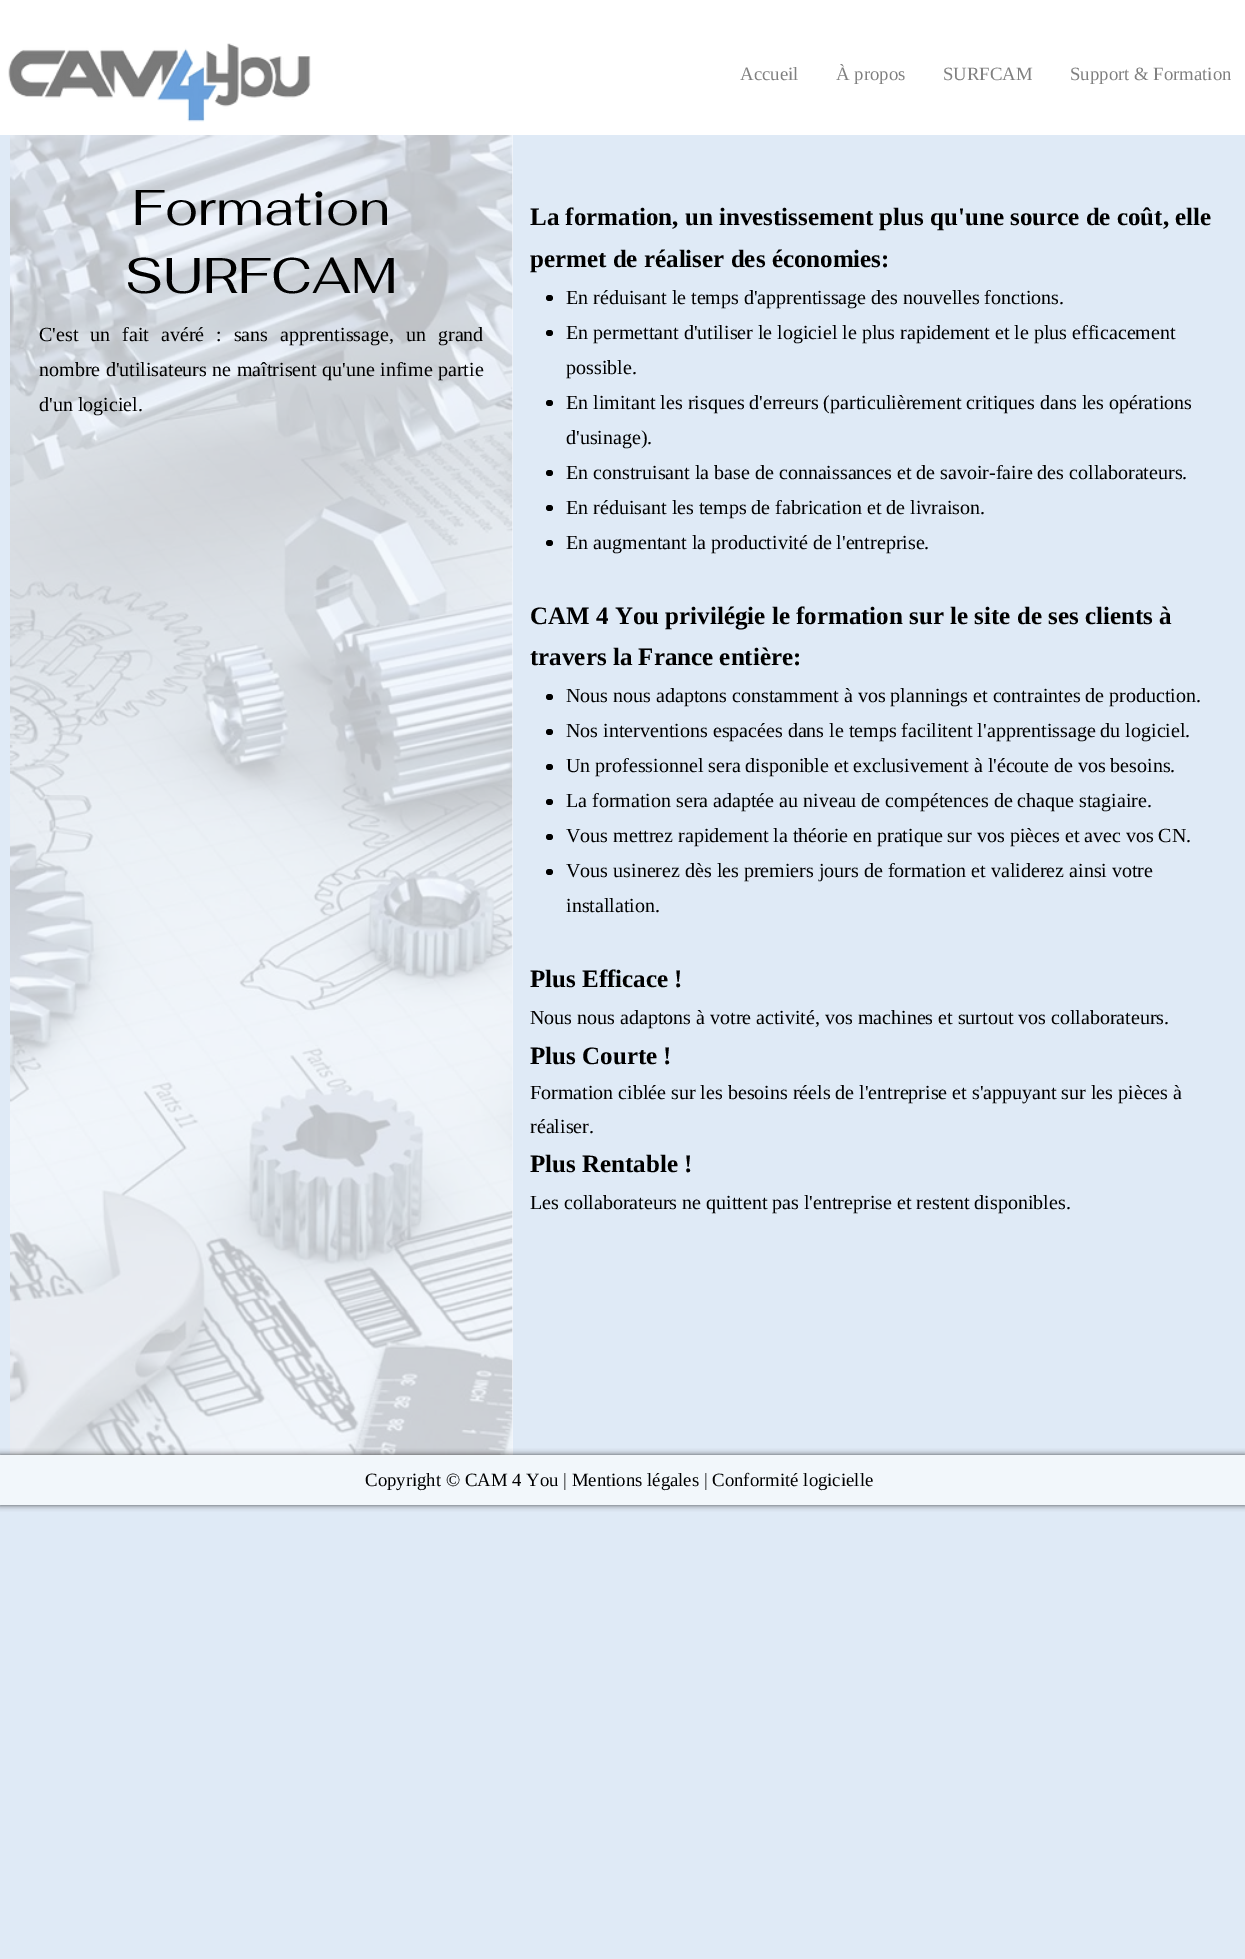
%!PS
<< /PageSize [1245 1959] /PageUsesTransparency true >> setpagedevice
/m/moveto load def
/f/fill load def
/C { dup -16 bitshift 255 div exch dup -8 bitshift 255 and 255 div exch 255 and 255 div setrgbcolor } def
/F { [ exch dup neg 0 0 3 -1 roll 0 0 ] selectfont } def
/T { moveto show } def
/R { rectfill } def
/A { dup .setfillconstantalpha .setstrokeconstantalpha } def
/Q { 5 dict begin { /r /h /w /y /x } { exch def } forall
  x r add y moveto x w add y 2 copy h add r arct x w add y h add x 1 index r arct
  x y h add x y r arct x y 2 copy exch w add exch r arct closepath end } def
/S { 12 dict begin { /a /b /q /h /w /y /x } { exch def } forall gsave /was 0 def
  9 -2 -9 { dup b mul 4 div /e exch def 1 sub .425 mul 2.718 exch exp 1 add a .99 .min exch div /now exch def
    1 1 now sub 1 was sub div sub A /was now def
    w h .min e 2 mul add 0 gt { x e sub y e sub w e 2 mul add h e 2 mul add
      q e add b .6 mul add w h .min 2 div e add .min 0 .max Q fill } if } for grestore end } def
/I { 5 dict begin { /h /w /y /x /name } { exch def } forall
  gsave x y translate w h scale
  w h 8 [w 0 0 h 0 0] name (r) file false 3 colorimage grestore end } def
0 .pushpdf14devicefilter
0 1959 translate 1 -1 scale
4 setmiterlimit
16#DFEAF6 C
0 0 1245 1959 R
16#FFFFFF C
0 0 1245 135 R
(1.rgb) 8 43 303 79 I
/LiberationSerif-Regular 18.75 F
16#808080 C
(Accueil) 740 80 T
(À propos) 836 80 T
(SURFCAM) 943 80 T
(Support & Formation) 1070 80 T
16#F3F7FC C
10 135 503 1320 R
(2.rgb) 10 135 503 1320 I
/Fahkwang-Regular 50 F
16#000000 C
(Formation) 132 225 T
(SURFCAM) 125 293 T
/LiberationSerif-Regular 20 F
39 341 m 7 0 32 (C'est un fait avéré : sans apprentissage, un grand) widthshow
39 376 m .5 0 32 (nombre d'utilisateurs ne maîtrisent qu'une infime partie) widthshow
(d'un logiciel.) 39 411 T
/LiberationSerif-Bold 25 F
(La formation, un investissement plus qu'une source de coût, elle) 530 225 T
(permet de réaliser des économies:) 530 267 T
546 295 7 6 3 Q f
/LiberationSerif-Regular 20 F
(En réduisant le temps d'apprentissage des nouvelles fonctions.) 566 304 T
546 330 7 6 3 Q f
(En permettant d'utiliser le logiciel le plus rapidement et le plus efficacement) 566 339 T
(possible.) 566 374 T
546 400 7 6 3 Q f
(En limitant les risques d'erreurs \(particulièrement critiques dans les opérations) 566 409 T
(d'usinage\).) 566 444 T
546 470 7 6 3 Q f
(En construisant la base de connaissances et de savoir-faire des collaborateurs.) 566 479 T
546 505 7 6 3 Q f
(En réduisant les temps de fabrication et de livraison.) 566 514 T
546 540 7 6 3 Q f
(En augmentant la productivité de l'entreprise.) 566 549 T
/LiberationSerif-Bold 25 F
(CAM 4 You privilégie le formation sur le site de ses clients à) 530 624 T
(travers la France entière:) 530 665 T
546 694 7 6 3 Q f
/LiberationSerif-Regular 20 F
(Nous nous adaptons constamment à vos plannings et contraintes de production.) 566 702 T
546 729 7 6 3 Q f
(Nos interventions espacées dans le temps facilitent l'apprentissage du logiciel.) 566 737 T
546 764 7 6 3 Q f
(Un professionnel sera disponible et exclusivement à l'écoute de vos besoins.) 566 772 T
546 799 7 6 3 Q f
(La formation sera adaptée au niveau de compétences de chaque stagiaire.) 566 807 T
546 834 7 6 3 Q f
(Vous mettrez rapidement la théorie en pratique sur vos pièces et avec vos CN.) 566 842 T
546 869 7 6 3 Q f
(Vous usinerez dès les premiers jours de formation et validerez ainsi votre) 566 877 T
(installation.) 566 912 T
/LiberationSerif-Bold 25 F
(Plus Efficace !) 530 987 T
/LiberationSerif-Regular 20 F
(Nous nous adaptons à votre activité, vos machines et surtout vos collaborateurs.) 530 1024 T
/LiberationSerif-Bold 25 F
(Plus Courte !) 530 1064 T
/LiberationSerif-Regular 20 F
(Formation ciblée sur les besoins réels de l'entreprise et s'appuyant sur les pièces à) 530 1099 T
(réaliser.) 530 1133 T
/LiberationSerif-Bold 25 F
(Plus Rentable !) 530 1172 T
/LiberationSerif-Regular 20 F
(Les collaborateurs ne quittent pas l'entreprise et restent disponibles.) 530 1209 T
0 1455 1245 50 0 3 .7 S
16#F2F7FB C
0 1455 1245 50 R
/LiberationSerif-Regular 18.75 F
16#000000 C
(Copyright © CAM 4 You | Mentions légales | Conformité logicielle) 365 1486 T
.poppdf14devicefilter showpage
